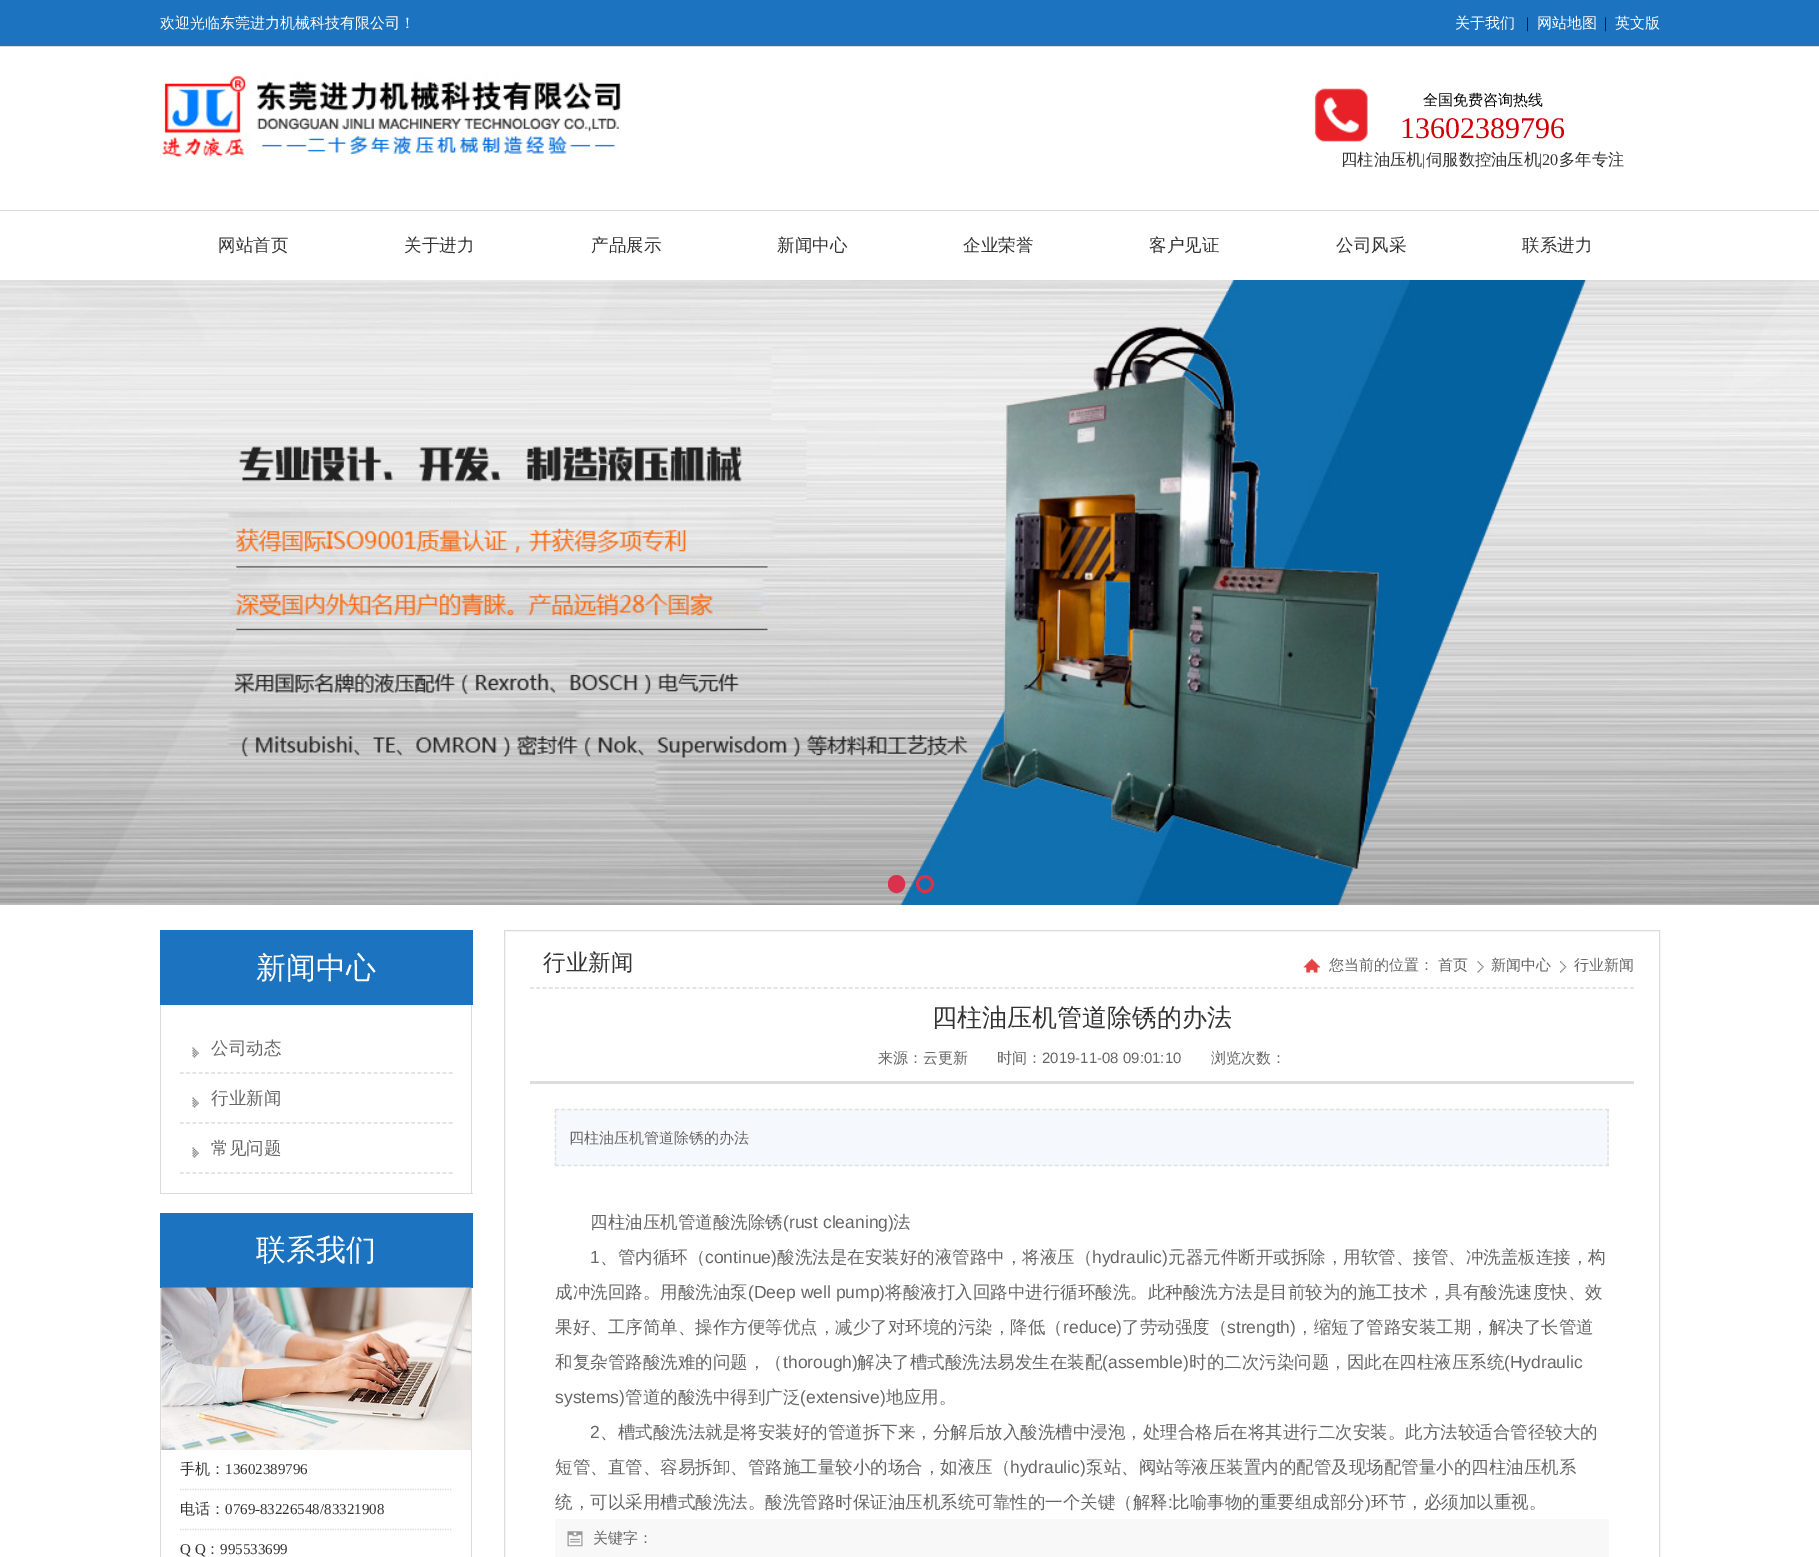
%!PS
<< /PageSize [1819 1557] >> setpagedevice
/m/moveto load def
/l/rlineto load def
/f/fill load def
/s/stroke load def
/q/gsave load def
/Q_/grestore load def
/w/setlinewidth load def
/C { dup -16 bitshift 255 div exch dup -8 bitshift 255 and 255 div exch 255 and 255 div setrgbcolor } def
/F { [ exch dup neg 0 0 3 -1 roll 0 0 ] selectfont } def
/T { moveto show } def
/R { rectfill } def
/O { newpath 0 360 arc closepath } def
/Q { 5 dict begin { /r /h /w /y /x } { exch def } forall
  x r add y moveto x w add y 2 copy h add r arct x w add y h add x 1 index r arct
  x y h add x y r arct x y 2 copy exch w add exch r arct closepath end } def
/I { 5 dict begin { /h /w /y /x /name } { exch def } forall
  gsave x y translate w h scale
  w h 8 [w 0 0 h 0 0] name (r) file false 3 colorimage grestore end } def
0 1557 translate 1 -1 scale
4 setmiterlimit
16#FFFFFF C
0 0 1819 1557 R
16#DDDDDD C
0 46 1819 1 R
16#1C73C0 C
0 0 1819 46 R
/WenQuanYiZenHei-Medium 15 F
16#FFFFFF C
(欢迎光临东莞进力机械科技有限公司！) 160 28 T
(关于我们) 1455 28 T
/LiberationSerif-Regular 15 F
16#000000 C
(|) 1526 28 T
/WenQuanYiZenHei-Medium 15 F
16#FFFFFF C
(网站地图) 1537 28 T
/LiberationSerif-Regular 15 F
16#000000 C
(|) 1604 28 T
/WenQuanYiZenHei-Medium 15 F
16#FFFFFF C
(英文版) 1615 28 T
(1.rgb) 162 73 459 87 I
(2.rgb) 1314 88 54 54 I
16#000000 C
(全国免费咨询热线) 1423 105 T
/LiberationSerif-Regular 30 F
16#D10008 C
(13602389796) 1400 138 T
/WenQuanYiZenHei-Medium 16.25 F
16#333333 C
(四柱油压机) 1341 165 T
/LiberationSerif-Regular 16.25 F
(|) 1422 165 T
/WenQuanYiZenHei-Medium 16.25 F
(伺服数控油压机) 1426 165 T
/LiberationSerif-Regular 16.25 F
(|20) 1539 165 T
/WenQuanYiZenHei-Medium 16.25 F
(多年专注) 1559 165 T
16#DCDCDC C
0 210 1819 1 R
/WenQuanYiZenHei-Medium 17.5 F
16#333333 C
(网站首页) 218 251 T
(关于进力) 404 251 T
(产品展示) 591 251 T
(新闻中心) 777 251 T
(企业荣誉) 963 251 T
(客户见证) 1149 251 T
(公司风采) 1336 251 T
(联系进力) 1522 251 T
(3.rgb) 0 280 1819 625 I
16#DA324D C
889.5 876.5 14 15 7 Q q f Q_
3 w
s
925 884 7.5 O s
16#1C73C0 C
160 930 313 75 R
/WenQuanYiZenHei-Medium 30 F
16#FFFFFF C
(新闻中心) 256 978 T
16#DBDBDB C
471 1005 1 189 R
160 1193 313 1 R
160 1005 1 189 R
1.2 w
[3.75 2.5] 0 setdash
180 1073 m 272.5 0 l s
(4.rgb) 192 1047 7 11 I
/WenQuanYiZenHei-Medium 17.5 F
16#666666 C
(公司动态) 211 1054 T
16#DBDBDB C
180 1123 m 272.5 0 l s
(4.rgb) 192 1097 7 11 I
16#666666 C
(行业新闻) 211 1104 T
16#DBDBDB C
180 1173 m 272.5 0 l s
(4.rgb) 192 1147 7 11 I
16#666666 C
(常见问题) 211 1154 T
16#1C73C0 C
160 1213 313 75 R
/WenQuanYiZenHei-Medium 30 F
16#FFFFFF C
(联系我们) 256 1260 T
16#DBDBDB C
471 1288 1 269 R
160 1288 1 269 R
(5.rgb) 161 1287 311 163 I
[1.25 1.25] 0 setdash
180 1489.5 m 272.5 0 l s
/WenQuanYiZenHei-Medium 15 F
16#333333 C
(手机：) 180 1474 T
/LiberationSerif-Regular 15 F
(13602389796) 225 1474 T
16#DBDBDB C
180 1529.5 m 272.5 0 l s
/WenQuanYiZenHei-Medium 15 F
16#333333 C
(电话：) 180 1514 T
/LiberationSerif-Regular 15 F
(0769-83226548/83321908) 225 1514 T
(Q Q) 180 1554 T
/WenQuanYiZenHei-Medium 15 F
(：) 205 1554 T
/LiberationSerif-Regular 15 F
(995533699) 220 1554 T
16#DBDBDB C
1 w
[] 0 setdash
504.5 930.5 1155 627 rectstroke
1.2 w
[3.75 2.5] 0 setdash
530 988 m 1104 0 l s
/WenQuanYiZenHei-Medium 22.5 F
16#333333 C
(行业新闻) 543 970 T
(6.rgb) 1303 958 17 15 I
/WenQuanYiZenHei-Medium 15 F
16#666666 C
(您当前的位置：) 1329 970 T
(首页) 1438 970 T
(7.rgb) 1477 961 7 12 I
(新闻中心) 1491 970 T
(8.rgb) 1560 961 7 12 I
(行业新闻) 1574 970 T
16#DDDDDD C
530 1081 1104 3 R
/WenQuanYiZenHei-Medium 25 F
16#333333 C
(四柱油压机管道除锈的办法) 932 1026 T
/WenQuanYiZenHei-Medium 15 F
16#666666 C
(来源：云更新) 878 1063 T
(时间：) 997 1063 T
/LiberationSans-Regular 15 F
(2019-11-08 09:01:10) 1042 1063 T
/WenQuanYiZenHei-Medium 15 F
(浏览次数：) 1211 1063 T
16#F5F8FC C
555 1109 1054 57 R
16#E0E0E0 C
555 1109.5 m 1054 0 l s
[3.75 2.23] 0 setdash
1608 1109 m 0 57 l s
[3.75 2.5] 0 setdash
555 1165.5 m 1054 0 l s
[3.75 2.23] 0 setdash
555.5 1109 m 0 57 l s
16#666666 C
(四柱油压机管道除锈的办法) 569 1143 T
/WenQuanYiZenHei-Medium 17.5 F
(四柱油压机管道酸洗除锈) 590 1228 T
/LiberationSans-Regular 17.5 F
(\(rust cleaning\)) 783 1228 T
/WenQuanYiZenHei-Medium 17.5 F
(法) 893 1228 T
/LiberationSans-Regular 17.5 F
(1) 590 1263 T
/WenQuanYiZenHei-Medium 17.5 F
(、管内循环（) 600 1263 T
/LiberationSans-Regular 17.5 F
(continue\)) 705 1263 T
/WenQuanYiZenHei-Medium 17.5 F
(酸洗法是在安装好的液管路中，将液压（) 777 1263 T
/LiberationSans-Regular 17.5 F
(hydraulic\)) 1092 1263 T
/WenQuanYiZenHei-Medium 17.5 F
(元器元件断开或拆除，用软管、接管、冲洗盖板连接，构) 1168 1263 T
(成冲洗回路。用酸洗油泵) 555 1298 T
/LiberationSans-Regular 17.5 F
(\(Deep well pump\)) 748 1298 T
/WenQuanYiZenHei-Medium 17.5 F
(将酸液打入回路中进行循环酸洗。此种酸洗方法是目前较为的施工技术，具有酸洗速度快、效) 885 1298 T
(果好、工序简单、操作方便等优点，减少了对环境的污染，降低（) 555 1333 T
/LiberationSans-Regular 17.5 F
(reduce\)) 1063 1333 T
/WenQuanYiZenHei-Medium 17.5 F
(了劳动强度（) 1122 1333 T
/LiberationSans-Regular 17.5 F
(strength\)) 1227 1333 T
/WenQuanYiZenHei-Medium 17.5 F
(，缩短了管路安装工期，解决了长管道) 1296 1333 T
(和复杂管路酸洗难的问题，（) 555 1368 T
/LiberationSans-Regular 17.5 F
(thorough\)) 783 1368 T
/WenQuanYiZenHei-Medium 17.5 F
(解决了槽式酸洗法易发生在装配) 857 1368 T
/LiberationSans-Regular 17.5 F
(\(assemble\)) 1102 1368 T
/WenQuanYiZenHei-Medium 17.5 F
(时的二次污染问题，因此在四柱液压系统) 1189 1368 T
/LiberationSans-Regular 17.5 F
(\(Hydraulic) 1504 1368 T
(systems\)) 555 1403 T
/WenQuanYiZenHei-Medium 17.5 F
(管道的酸洗中得到广泛) 625 1403 T
/LiberationSans-Regular 17.5 F
(\(extensive\)) 800 1403 T
/WenQuanYiZenHei-Medium 17.5 F
(地应用。) 886 1403 T
/LiberationSans-Regular 17.5 F
(2) 590 1438 T
/WenQuanYiZenHei-Medium 17.5 F
(、槽式酸洗法就是将安装好的管道拆下来，分解后放入酸洗槽中浸泡，处理合格后在将其进行二次安装。此方法较适合管径较大的) 600 1438 T
(短管、直管、容易拆卸、管路施工量较小的场合，如液压（) 555 1473 T
/LiberationSans-Regular 17.5 F
(hydraulic\)) 1010 1473 T
/WenQuanYiZenHei-Medium 17.5 F
(泵站、阀站等液压装置内的配管及现场配管量小的四柱油压机系) 1086 1473 T
(统，可以采用槽式酸洗法。酸洗管路时保证油压机系统可靠性的一个关键（解释) 555 1508 T
/LiberationSans-Regular 17.5 F
(:) 1168 1508 T
/WenQuanYiZenHei-Medium 17.5 F
(比喻事物的重要组成部分) 1172 1508 T
/LiberationSans-Regular 17.5 F
(\)) 1365 1508 T
/WenQuanYiZenHei-Medium 17.5 F
(环节，必须加以重视。) 1371 1508 T
16#F8F8F8 C
555 1519 1054 38 R
(9.rgb) 567 1531 16 16 I
/WenQuanYiZenHei-Medium 15 F
16#666666 C
(关键字：) 593 1543 T
showpage
